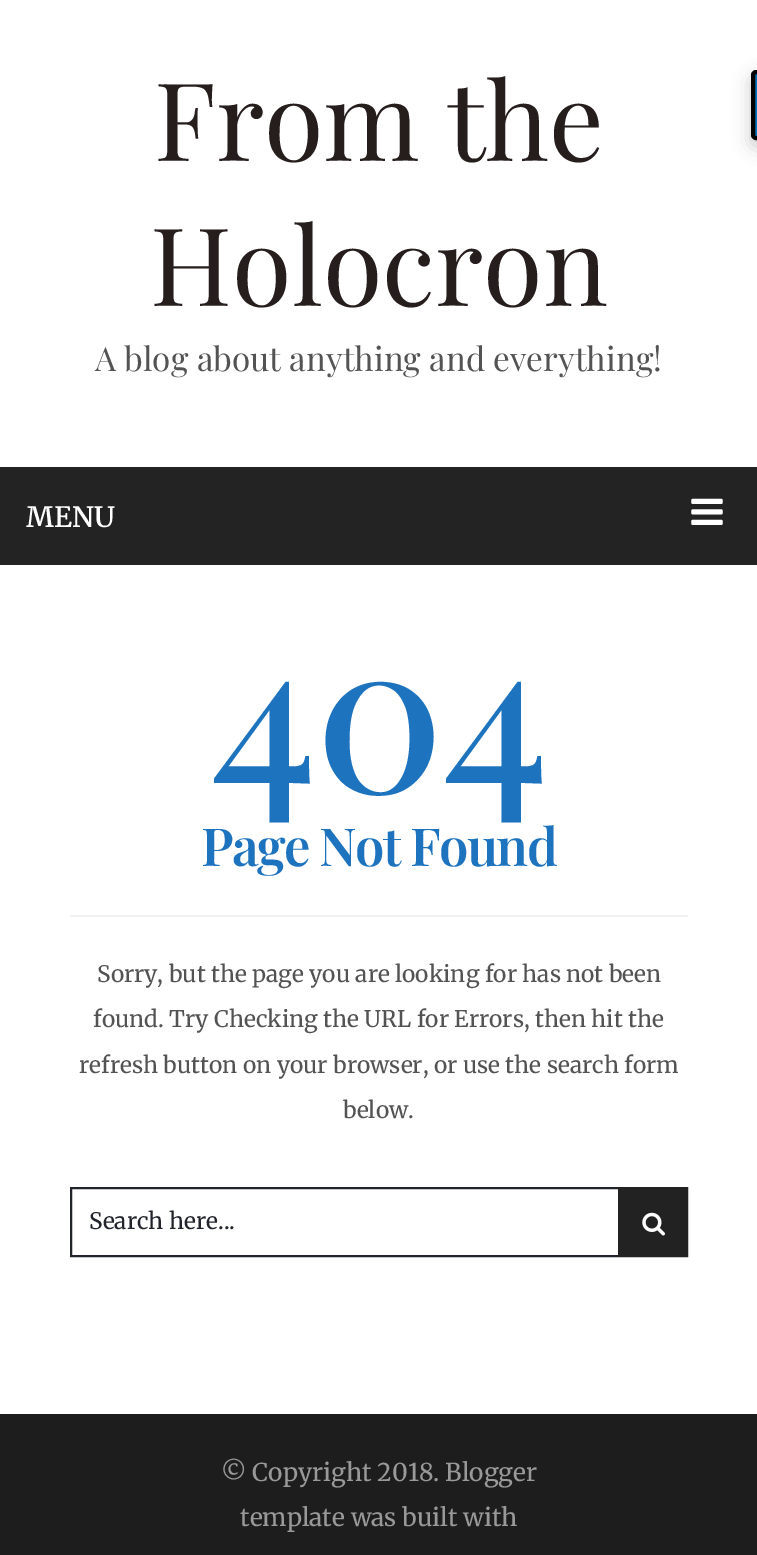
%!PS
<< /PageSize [757 1555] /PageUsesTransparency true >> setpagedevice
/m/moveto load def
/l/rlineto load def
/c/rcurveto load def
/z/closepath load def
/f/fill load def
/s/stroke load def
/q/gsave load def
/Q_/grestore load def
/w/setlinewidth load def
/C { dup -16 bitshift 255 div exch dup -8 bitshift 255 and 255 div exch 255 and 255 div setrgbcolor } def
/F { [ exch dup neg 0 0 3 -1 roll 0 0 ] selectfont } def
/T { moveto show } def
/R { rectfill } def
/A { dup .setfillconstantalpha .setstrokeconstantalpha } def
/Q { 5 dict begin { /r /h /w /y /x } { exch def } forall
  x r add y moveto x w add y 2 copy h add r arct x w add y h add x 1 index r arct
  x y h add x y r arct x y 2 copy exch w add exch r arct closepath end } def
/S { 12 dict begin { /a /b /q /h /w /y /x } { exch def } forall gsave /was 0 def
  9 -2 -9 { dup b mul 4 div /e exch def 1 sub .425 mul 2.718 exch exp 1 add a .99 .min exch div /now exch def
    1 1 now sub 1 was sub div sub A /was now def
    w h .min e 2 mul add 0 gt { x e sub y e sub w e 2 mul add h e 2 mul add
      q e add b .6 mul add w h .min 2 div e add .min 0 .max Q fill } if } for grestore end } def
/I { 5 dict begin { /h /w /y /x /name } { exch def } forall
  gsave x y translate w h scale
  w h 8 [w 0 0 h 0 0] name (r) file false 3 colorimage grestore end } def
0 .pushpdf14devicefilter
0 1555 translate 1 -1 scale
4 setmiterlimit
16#FFFFFF C
0 0 757 1555 R
/PlayfairDisplay-Regular 108.5 F
16#261D1D C
(From the) 154 161 T
(Holocron) 150 306 T
/PlayfairDisplay-Regular 33.25 F
16#545353 C
(A blog about anything and everything!) 95 371 T
16#232323 C
0 467 757 98 R
/Merriweather-SemiBold 28 F
16#FFFFFF C
(MENU) 26 527 T
(1.rgb) 691 498 32 27 I
16#F2F2F2 C
70 915 618 2 R
/PlayfairDisplay-Medium 210 F
16#1E73BE C
211 793 m -1.75 0 (404) ashow
/PlayfairDisplay-SemiBold 52.5 F
201 866 m -1.75 0 (Page Not Found) ashow
/Merriweather-Regular 22.75 F
16#545353 C
(Sorry, but the page you are looking for has not been) 97 982 T
(found. Try Checking the URL for Errors, then hit the) 93 1027 T
(refresh button on your browser, or use the search form) 79 1073 T
(below.) 343 1118 T
16#21252B C
2 w
71 1188 616 68 rectstroke
(Search here...) 89 1229 T
16#222222 C
618 1187 70 70 R
(2.rgb) 642 1212 23 24 I
16#1E1D1D C
0 1414 757 141 R
/Merriweather-Regular 24.5 F
16#999999 C
(© Copyright 2018. Blogger) 221 1481 T
(template was built with) 240 1526 T
16#000000 C
751 77 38 70 5 9 .2 S
16#0073B7 C
756 72 m 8 0 l 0 66 l -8 0 l -1.5 0 -3 -1.5 -3 -3 c 0 -60 l 0 -1.5 1.5 -3 3 -3 c z q f Q_
16#000000 C
4 w
s
.poppdf14devicefilter showpage
